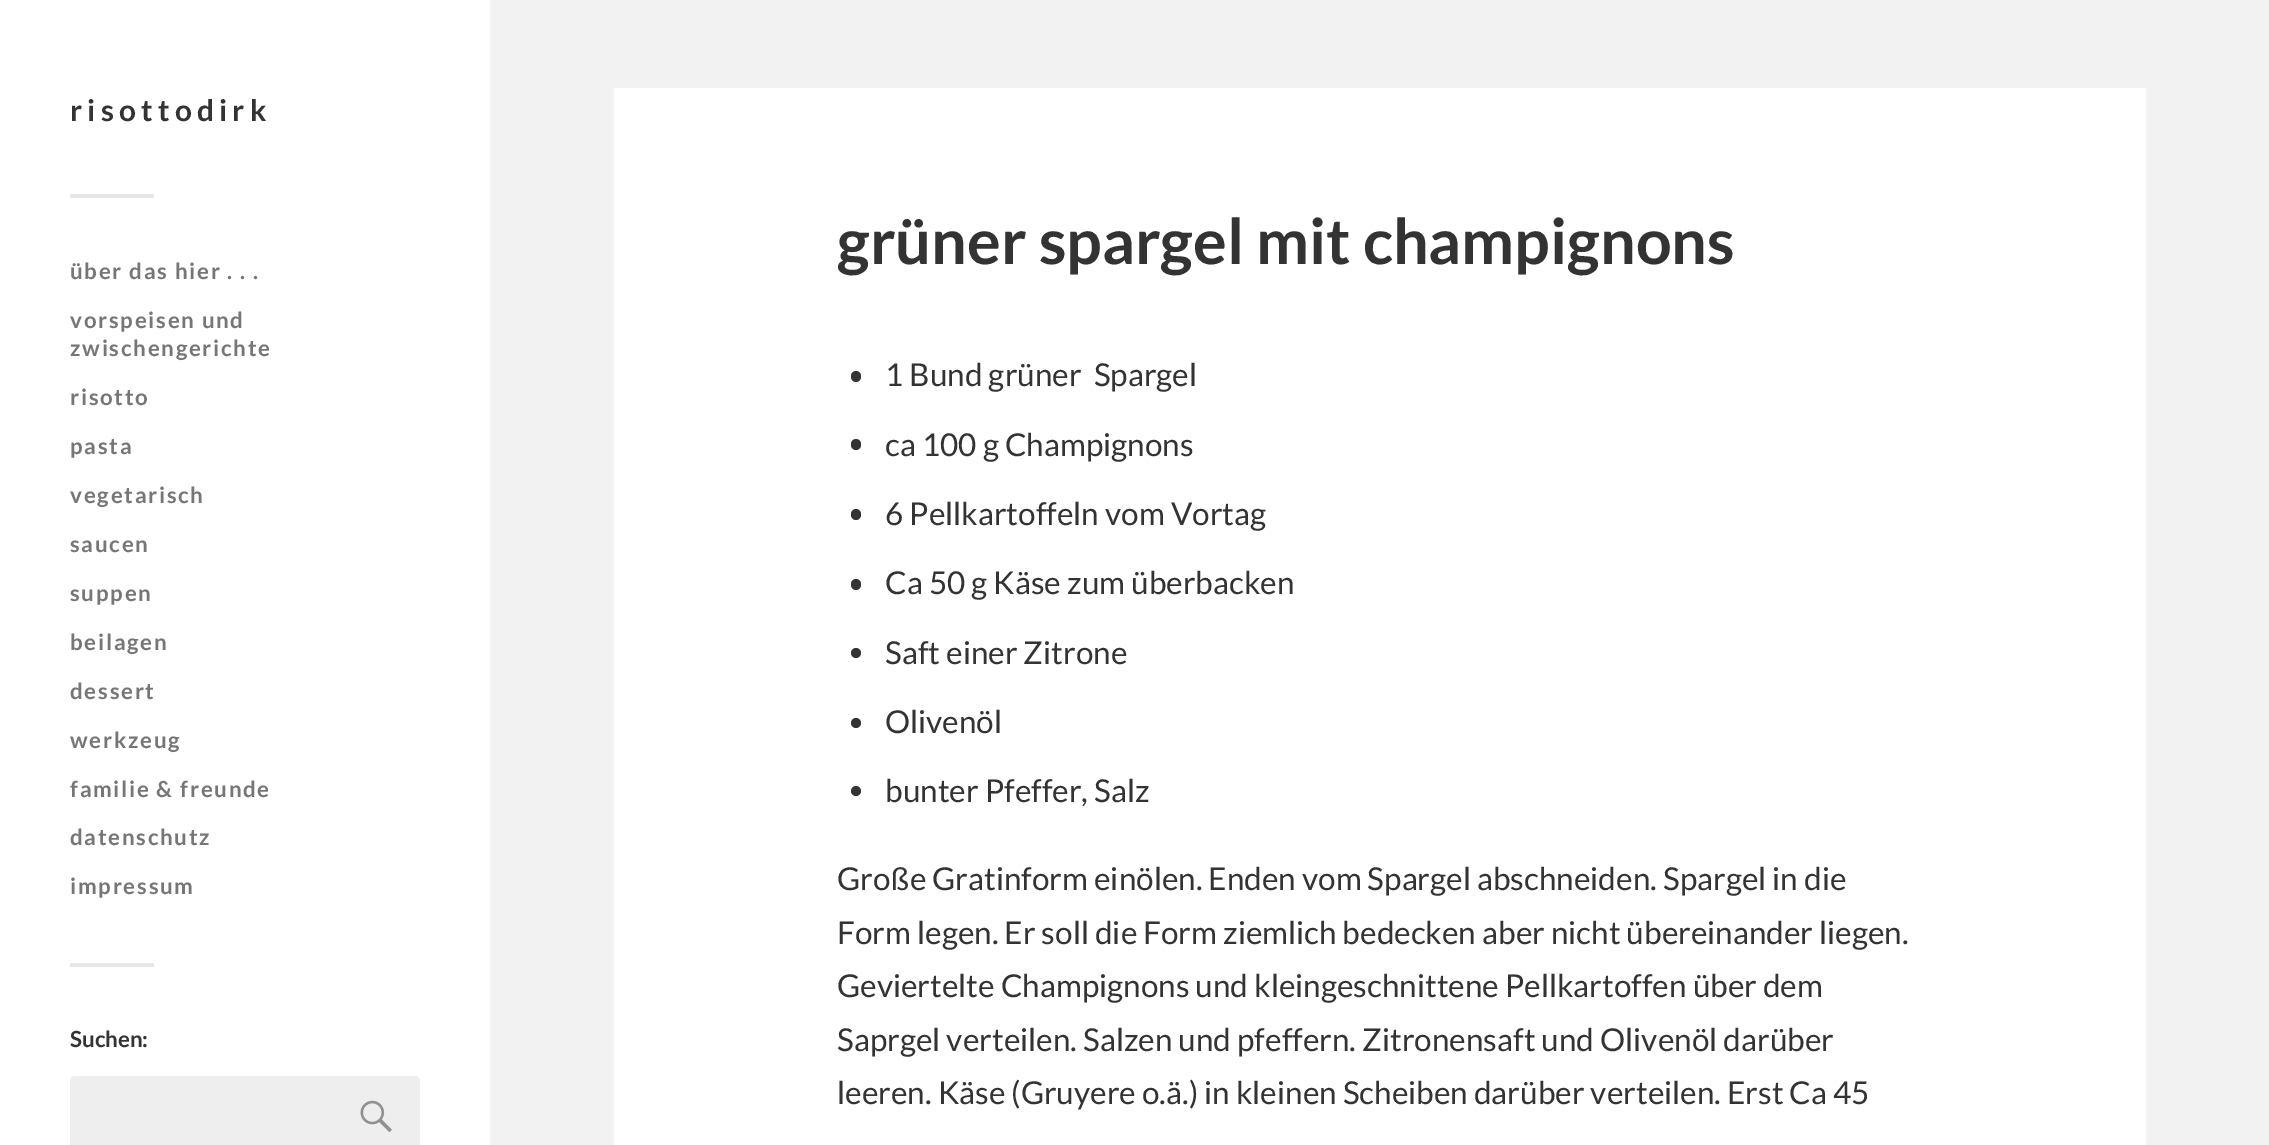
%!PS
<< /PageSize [2269 1145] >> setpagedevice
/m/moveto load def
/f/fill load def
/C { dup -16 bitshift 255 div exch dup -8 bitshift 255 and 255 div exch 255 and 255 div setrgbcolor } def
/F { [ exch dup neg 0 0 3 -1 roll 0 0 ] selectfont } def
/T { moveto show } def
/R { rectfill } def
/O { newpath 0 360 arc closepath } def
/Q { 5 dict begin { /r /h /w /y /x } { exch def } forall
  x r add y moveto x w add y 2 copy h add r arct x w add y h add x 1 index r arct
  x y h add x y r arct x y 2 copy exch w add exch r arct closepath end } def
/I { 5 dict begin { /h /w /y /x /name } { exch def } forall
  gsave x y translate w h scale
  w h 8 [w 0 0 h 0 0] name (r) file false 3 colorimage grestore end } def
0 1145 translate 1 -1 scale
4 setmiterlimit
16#F2F2F2 C
0 0 2269 1145 R
16#FFFFFF C
0 0 490 1145 R
/Lato-Bold 29.75 F
16#333333 C
70 121 m 5.25 0 (risottodirk) ashow
16#E7E7E7 C
70 194 84 4 R
/Lato-Bold 22.25 F
16#767676 C
70 279 m 1.75 0 (über das hier . . .) ashow
70 328 m 1.75 0 (vorspeisen und) ashow
70 356 m 1.75 0 (zwischengerichte) ashow
70 405 m 1.75 0 (risotto) ashow
70 454 m 1.75 0 (pasta) ashow
70 503 m 1.75 0 (vegetarisch) ashow
70 552 m 1.75 0 (saucen) ashow
70 601 m 1.75 0 (suppen) ashow
70 650 m 1.75 0 (beilagen) ashow
70 699 m 1.75 0 (dessert) ashow
70 748 m 1.75 0 (werkzeug) ashow
70 797 m 1.75 0 (familie & freunde) ashow
70 845 m 1.75 0 (datenschutz) ashow
70 894 m 1.75 0 (impressum) ashow
16#E7E7E7 C
70 963 84 4 R
16#333333 C
(Suchen:) 70 1047 T
16#EEEEEE C
70 1076 350 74 5 Q f
(1.rgb) 360 1100 32 33 I
16#FFFFFF C
614 88 1532 1057 R
/Lato-Bold 63 F
16#333333 C
(grüner spargel mit champignons) 837 264 T
851 371 10 11 5 Q f
/Lato-Regular 31.5 F
(1 Bund grüner  Spargel) 885 386 T
851 439 10 11 5 Q f
(ca 100 g Champignons) 885 456 T
851 509 10 11 5 Q f
(6 Pellkartoffeln vom Vortag) 885 525 T
851 579 10 11 5 Q f
(Ca 50 g Käse zum überbacken) 885 594 T
856 653 5 O f
(Saft einer Zitrone) 885 664 T
856 723 5 O f
(Olivenöl) 885 733 T
856 791 5 O f
(bunter Pfeffer, Salz) 885 802 T
(Große Gratinform einölen. Enden vom Spargel abschneiden. Spargel in die) 837 890 T
(Form legen. Er soll die Form ziemlich bedecken aber nicht übereinander liegen.) 837 944 T
(Geviertelte Champignons und kleingeschnittene Pellkartoffen über dem) 837 997 T
(Saprgel verteilen. Salzen und pfeffern. Zitronensaft und Olivenöl darüber) 837 1051 T
(leeren. Käse \(Gruyere o.ä.\) in kleinen Scheiben darüber verteilen. Erst Ca 45) 837 1104 T
showpage
